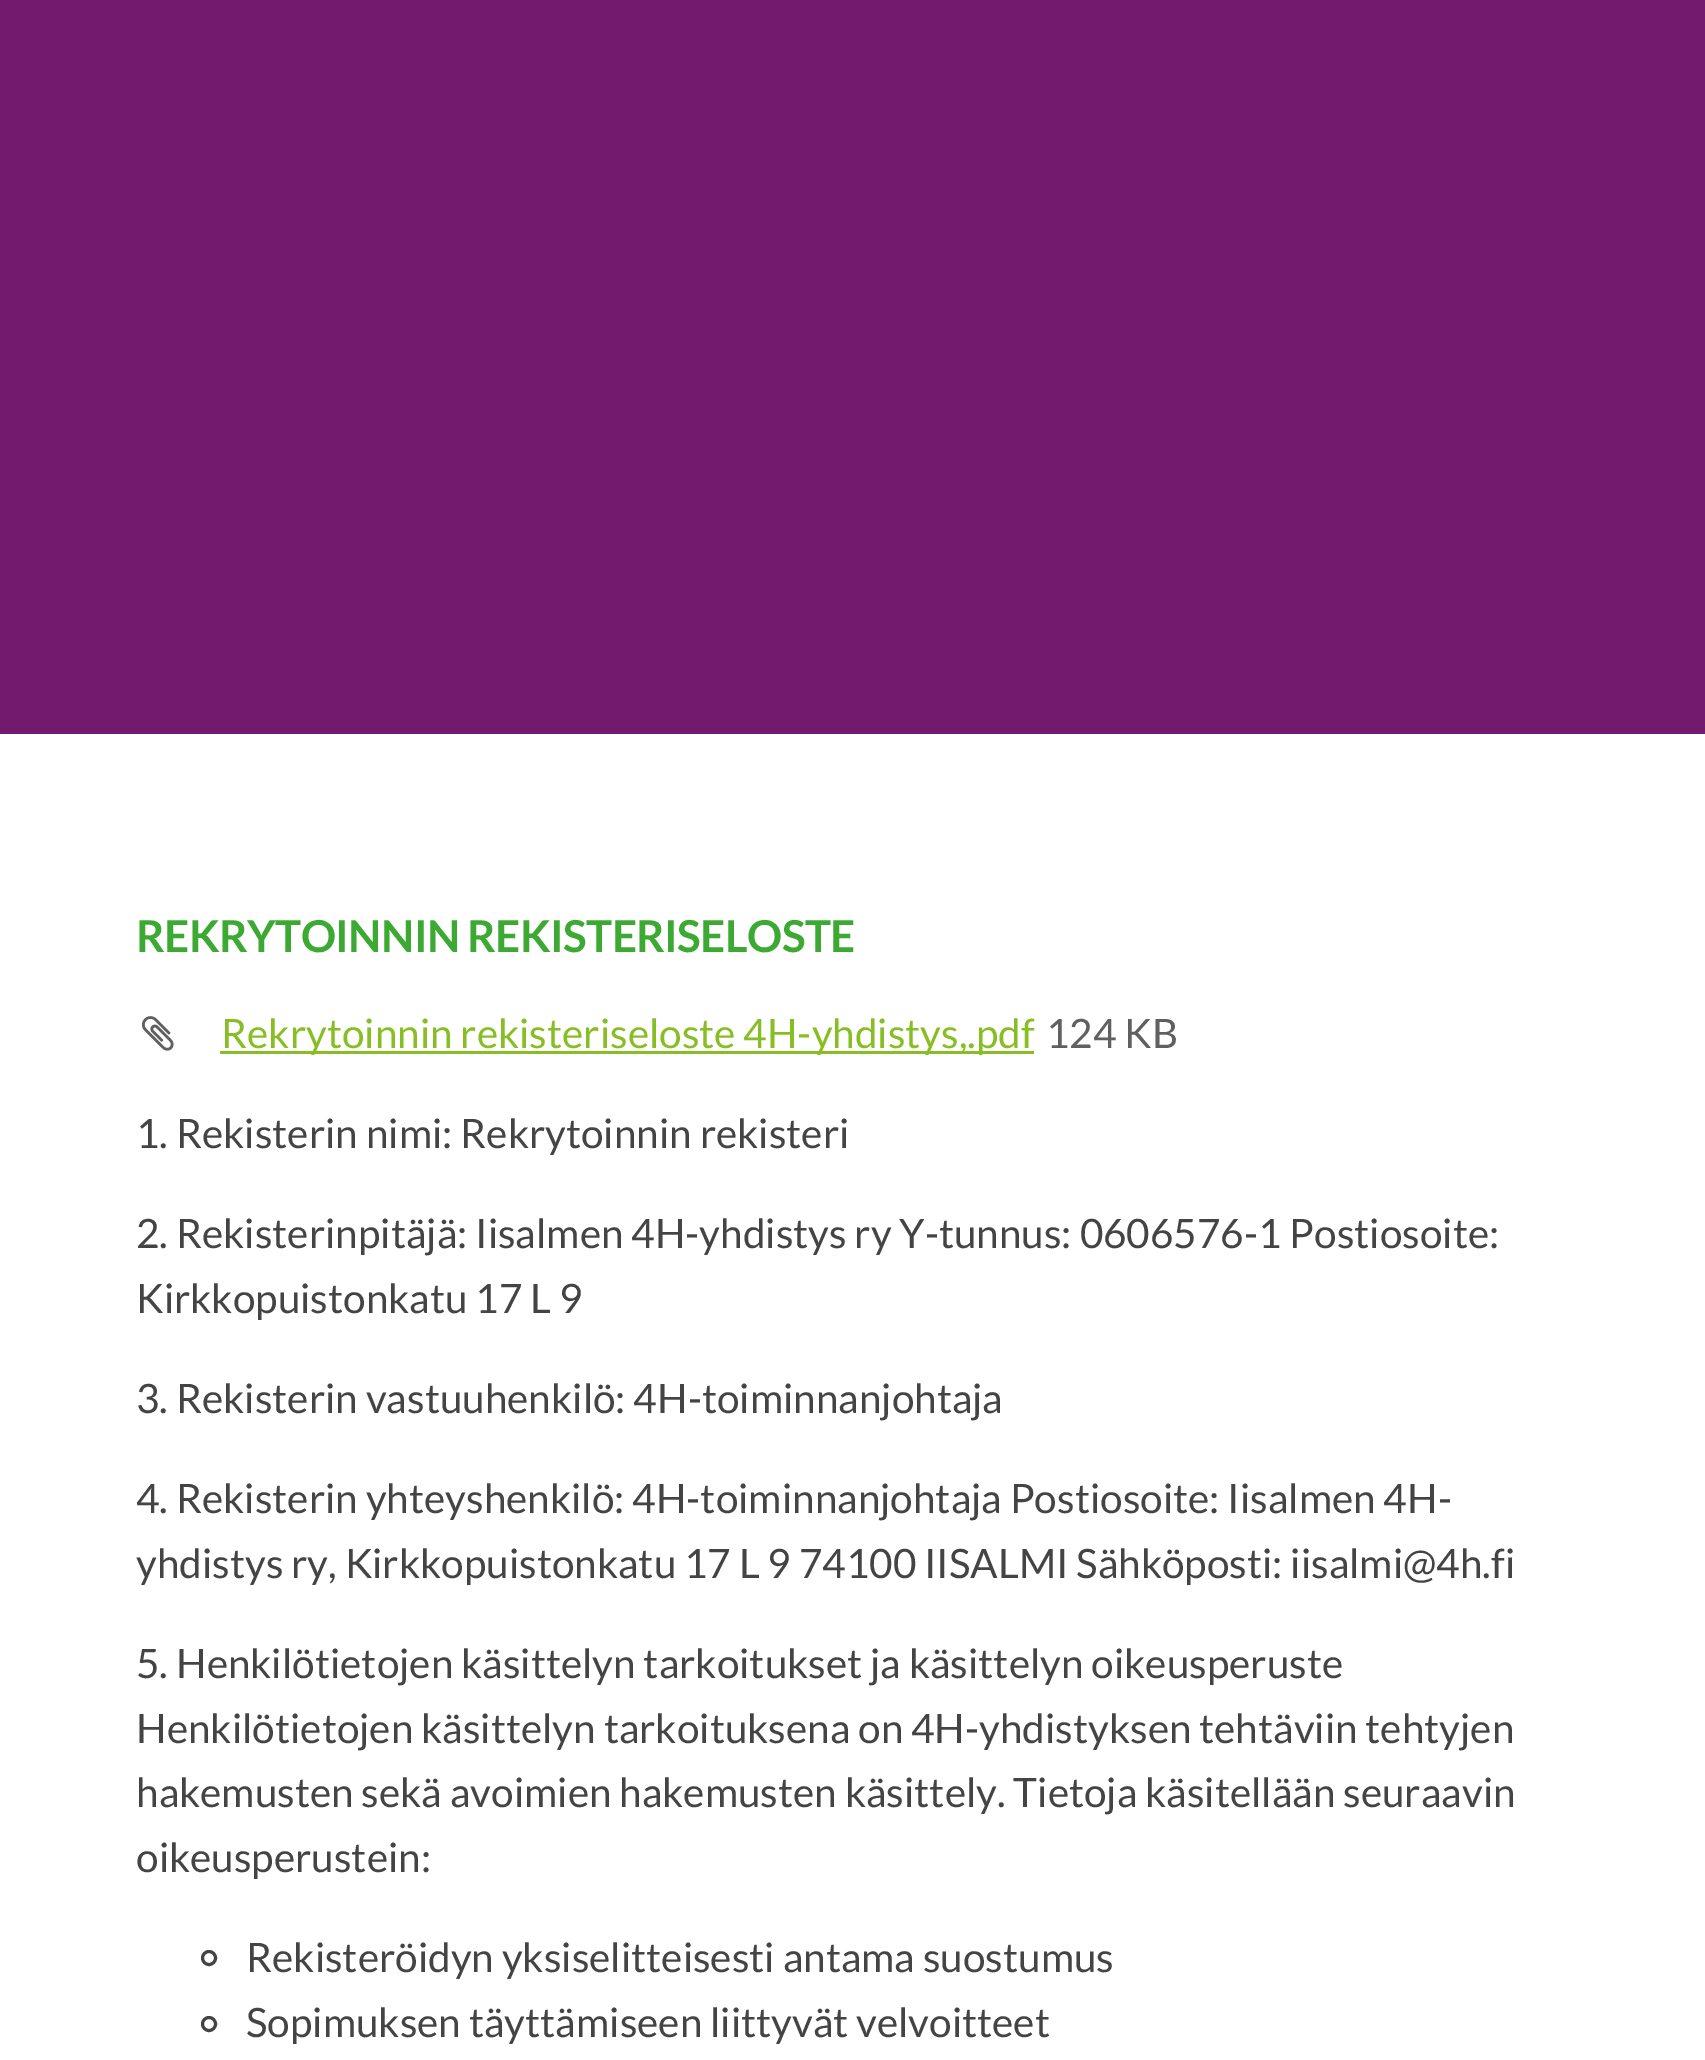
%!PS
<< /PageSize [1705 2060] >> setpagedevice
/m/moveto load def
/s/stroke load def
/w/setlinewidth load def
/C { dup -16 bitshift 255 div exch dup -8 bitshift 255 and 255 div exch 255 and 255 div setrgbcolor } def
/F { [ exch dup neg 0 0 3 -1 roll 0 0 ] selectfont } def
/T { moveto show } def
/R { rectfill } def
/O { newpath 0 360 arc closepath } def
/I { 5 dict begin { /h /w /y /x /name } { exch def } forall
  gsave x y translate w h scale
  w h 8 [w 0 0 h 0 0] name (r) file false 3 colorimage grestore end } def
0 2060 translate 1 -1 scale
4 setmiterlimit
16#FFFFFF C
0 0 1705 2060 R
16#73196E C
0 0 1705 734 R
/Lato-Bold 44 F
16#3CAA32 C
136 952 m -.65 0 (REKRYTOINNIN REKISTERISELOSTE) ashow
(1.rgb) 141 1016 33 35 I
16#87BE23 C
220 1051 814 3 R
/Lato-Regular 40.5 F
(Rekrytoinnin rekisteriseloste 4H-yhdistys,.pdf) 221 1048 T
16#606060 C
(124 KB) 1046 1048 T
16#444444 C
(1. Rekisterin nimi: Rekrytoinnin rekisteri) 136 1148 T
(2. Rekisterinpitäjä: Iisalmen 4H-yhdistys ry Y-tunnus: 0606576-1 Postiosoite:) 136 1248 T
(Kirkkopuistonkatu 17 L 9) 136 1313 T
(3. Rekisterin vastuuhenkilö: 4H-toiminnanjohtaja) 136 1413 T
(4. Rekisterin yhteyshenkilö: 4H-toiminnanjohtaja Postiosoite: Iisalmen 4H-) 136 1513 T
(yhdistys ry, Kirkkopuistonkatu 17 L 9 74100 IISALMI Sähköposti: iisalmi@4h.fi) 136 1578 T
(5. Henkilötietojen käsittelyn tarkoitukset ja käsittelyn oikeusperuste) 136 1678 T
(Henkilötietojen käsittelyn tarkoituksena on 4H-yhdistyksen tehtäviin tehtyjen) 136 1743 T
(hakemusten sekä avoimien hakemusten käsittely. Tietoja käsitellään seuraavin) 136 1807 T
(oikeusperustein:) 136 1872 T
3 w
209 1958 6.5 O s
(Rekisteröidyn yksiselitteisesti antama suostumus) 246 1972 T
209 2024 6.5 O s
(Sopimuksen täyttämiseen liittyvät velvoitteet) 246 2037 T
showpage
